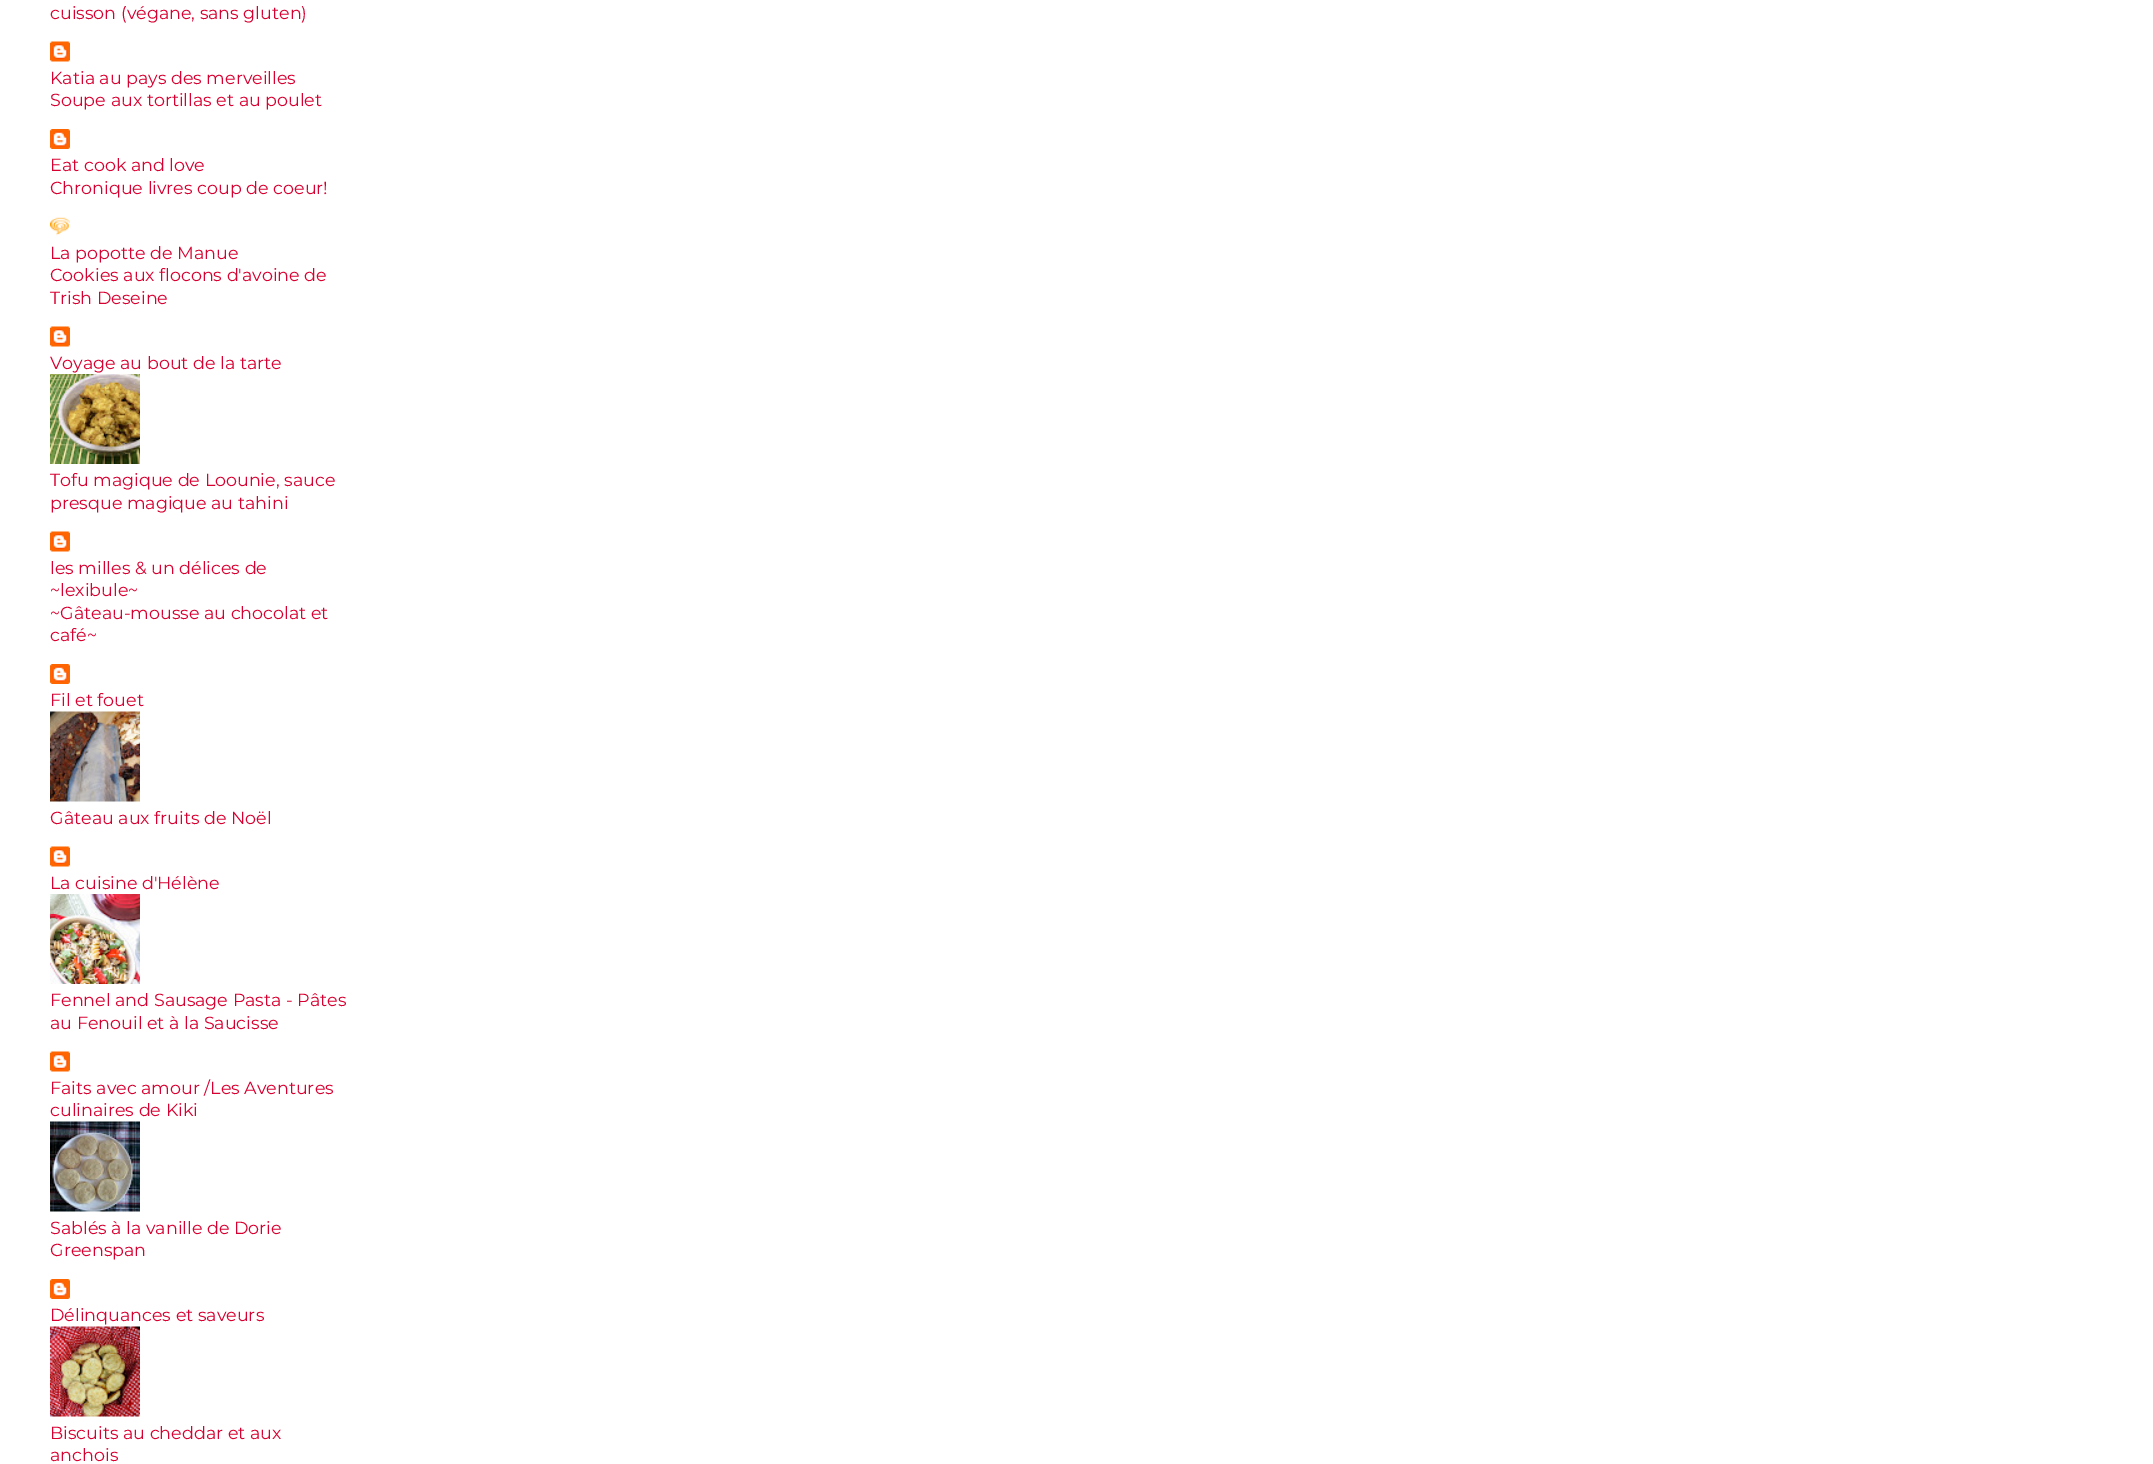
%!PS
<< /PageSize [2153 1464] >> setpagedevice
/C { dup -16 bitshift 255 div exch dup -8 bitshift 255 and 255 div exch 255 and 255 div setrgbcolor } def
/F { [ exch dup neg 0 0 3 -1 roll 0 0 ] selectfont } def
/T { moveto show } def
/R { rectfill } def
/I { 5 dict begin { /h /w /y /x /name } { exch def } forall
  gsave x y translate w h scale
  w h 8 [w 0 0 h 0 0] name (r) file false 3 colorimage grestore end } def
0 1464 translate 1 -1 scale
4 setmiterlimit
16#FFFFFF C
0 0 2153 1464 R
/Montserrat-Regular 17.5 F
16#D80030 C
(cuisson \(végane, sans gluten\)) 50 19 T
(1.rgb) 50 41 20 21 I
(Katia au pays des merveilles) 50 84 T
(Soupe aux tortillas et au poulet) 50 106 T
(2.rgb) 50 129 20 20 I
(Eat cook and love) 50 171 T
(Chronique livres coup de coeur!) 50 194 T
(3.rgb) 50 217 20 19 I
(La popotte de Manue) 50 259 T
(Cookies aux flocons d'avoine de) 50 281 T
(Trish Deseine) 50 304 T
(1.rgb) 50 326 20 21 I
(Voyage au bout de la tarte) 50 369 T
(4.rgb) 50 374 90 90 I
(Tofu magique de Loounie, sauce) 50 486 T
(presque magique au tahini) 50 509 T
(1.rgb) 50 531 20 21 I
(les milles & un délices de) 50 574 T
(~lexibule~) 50 596 T
(~Gâteau-mousse au chocolat et) 50 619 T
(café~) 50 641 T
(2.rgb) 50 664 20 20 I
(Fil et fouet) 50 706 T
(5.rgb) 50 711 90 91 I
(Gâteau aux fruits de Noël) 50 824 T
(1.rgb) 50 846 20 21 I
(La cuisine d'Hélène) 50 889 T
(6.rgb) 50 894 90 90 I
(Fennel and Sausage Pasta - Pâtes) 50 1006 T
(au Fenouil et à la Saucisse) 50 1029 T
(1.rgb) 50 1051 20 21 I
(Faits avec amour /Les Aventures) 50 1094 T
(culinaires de Kiki) 50 1116 T
(7.rgb) 50 1121 90 91 I
(Sablés à la vanille de Dorie) 50 1234 T
(Greenspan) 50 1256 T
(2.rgb) 50 1279 20 20 I
(Délinquances et saveurs) 50 1321 T
(8.rgb) 50 1326 90 91 I
(Biscuits au cheddar et aux) 50 1439 T
(anchois) 50 1461 T
showpage
